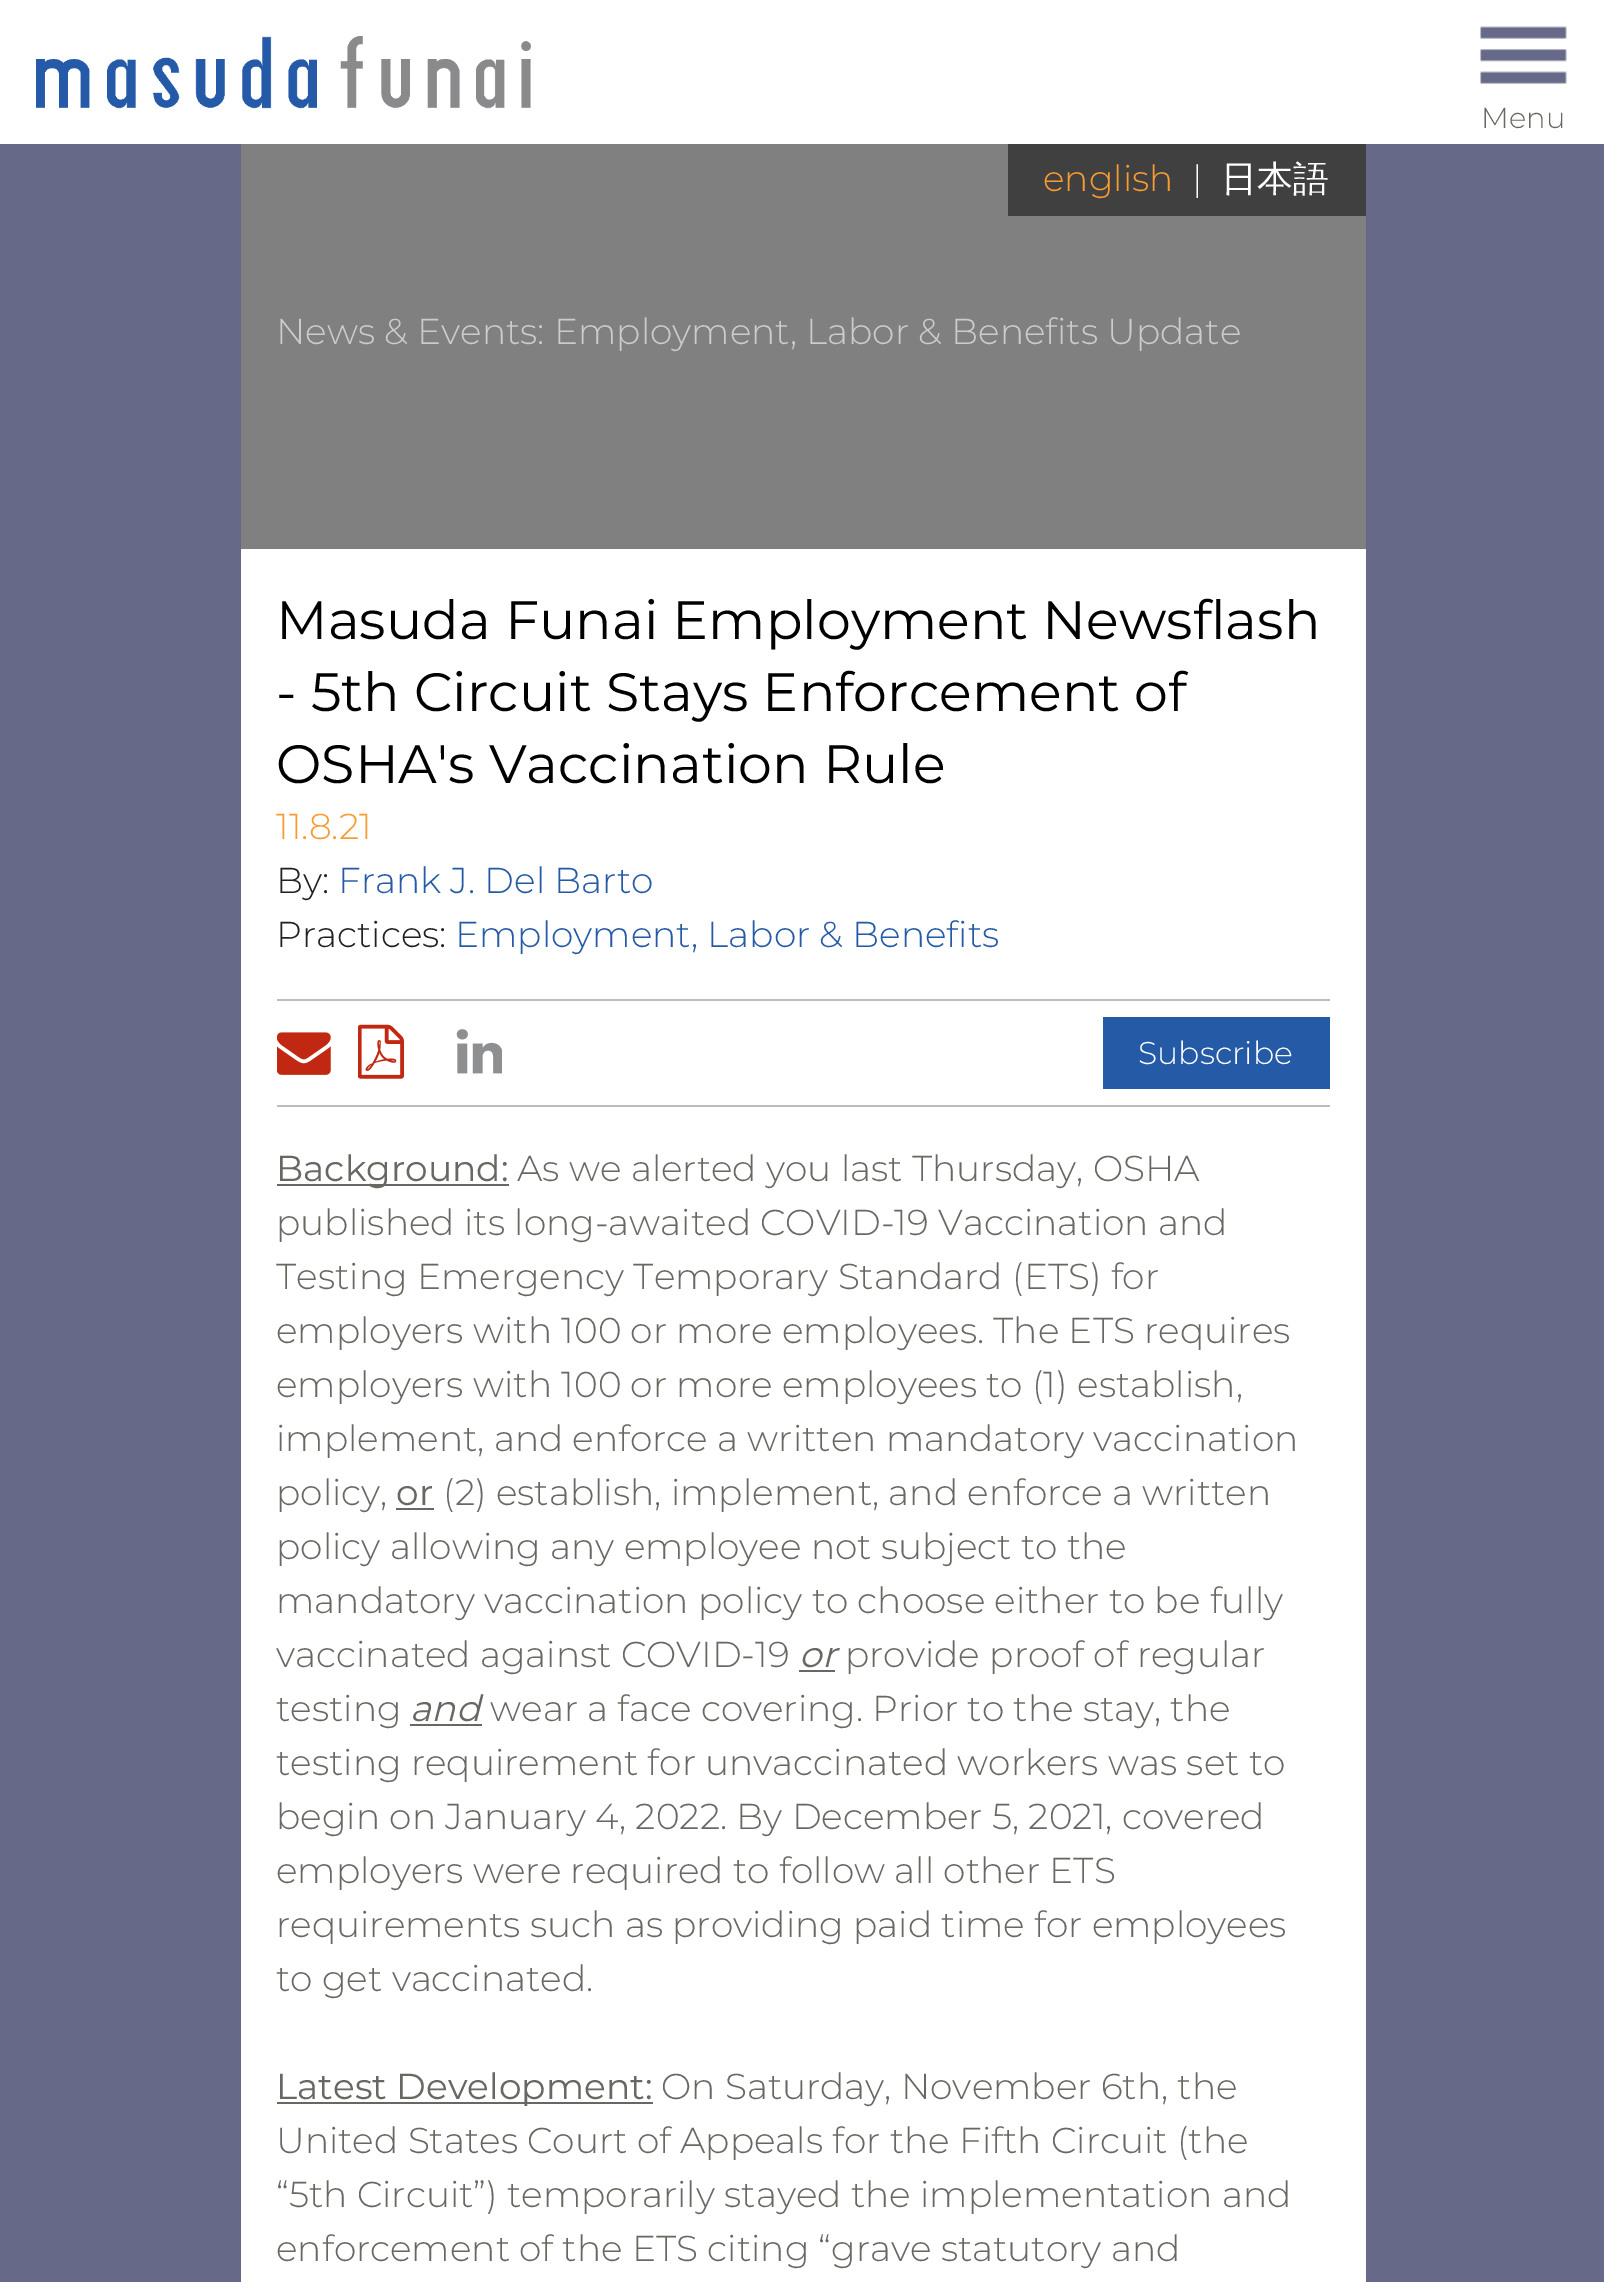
%!PS
<< /PageSize [1604 2282] >> setpagedevice
/C { dup -16 bitshift 255 div exch dup -8 bitshift 255 and 255 div exch 255 and 255 div setrgbcolor } def
/F { [ exch dup neg 0 0 3 -1 roll 0 0 ] selectfont } def
/T { moveto show } def
/R { rectfill } def
/I { 5 dict begin { /h /w /y /x /name } { exch def } forall
  gsave x y translate w h scale
  w h 8 [w 0 0 h 0 0] name (r) file false 3 colorimage grestore end } def
0 2282 translate 1 -1 scale
4 setmiterlimit
16#666987 C
0 0 1604 2282 R
16#FFFFFF C
241 549 1125 1733 R
0 0 1604 144 R
(1.rgb) 36 36 495 73 I
(2.rgb) 1480 26 87 58 I
/Montserrat-Light 29 F
16#666961 C
(Menu) 1481 128 T
16#808080 C
241 144 1125 405 R
16#404040 C
1008 144 358 72 R
/Montserrat-Light 36 F
16#F89B33 C
(english) 1043 191 T
16#FFFFFF C
(|) 1192 191 T
/WenQuanYiZenHei-Medium 36 F
(日本語) 1221 191 T
/Montserrat-Light 36 F
16#CCCCCC C
(News & Events: Employment, Labor & Benefits Update) 276 344 T
/Montserrat-Regular 54 F
16#000000 C
(Masuda Funai Employment Newsflash) 276 639 T
(- 5th Circuit Stays Enforcement of) 276 711 T
(OSHA's Vaccination Rule) 276 783 T
/Montserrat-Light 36 F
16#F89B33 C
(11.8.21) 276 839 T
16#212121 C
(By:) 276 893 T
16#255AA7 C
(Frank J. Del Barto) 338 893 T
16#212121 C
(Practices:) 276 947 T
16#255AA7 C
(Employment, Labor & Benefits) 455 947 T
16#BABCBF C
277 999 1053 2 R
277 1105 1053 2 R
(3.rgb) 277 1032 54 43 I
(4.rgb) 358 1024 47 55 I
(5.rgb) 456 1029 46 45 I
16#255AA7 C
1103 1017 227 72 R
/Montserrat-Light 31.5 F
16#FFFFFF C
(Subscribe) 1138 1064 T
16#666961 C
277 1184 232 2 R
/Montserrat-Regular 36 F
(Background:) 276 1181 T
/Montserrat-Light 36 F
(As we alerted you last Thursday, OSHA) 517 1181 T
(published its long-awaited COVID-19 Vaccination and) 276 1235 T
(Testing Emergency Temporary Standard \(ETS\) for) 276 1289 T
(employers with 100 or more employees. The ETS requires) 276 1343 T
(employers with 100 or more employees to \(1\) establish,) 276 1397 T
(implement, and enforce a written mandatory vaccination) 276 1451 T
(policy,) 276 1505 T
/Montserrat-Regular 36 F
(or) 396 1505 T
396 1508 38 2 R
/Montserrat-Light 36 F
(\(2\) establish, implement, and enforce a written) 443 1505 T
(policy allowing any employee not subject to the) 276 1559 T
(mandatory vaccination policy to choose either to be fully) 276 1613 T
(vaccinated against COVID-19) 276 1667 T
/Montserrat-Italic 36 F
(or) 799 1667 T
799 1670 36 2 R
/Montserrat-Light 36 F
(provide proof of regular) 845 1667 T
(testing) 276 1721 T
/Montserrat-Italic 36 F
(and) 410 1721 T
410 1724 72 2 R
/Montserrat-Light 36 F
(wear a face covering. Prior to the stay, the) 490 1721 T
(testing requirement for unvaccinated workers was set to) 276 1775 T
(begin on January 4, 2022. By December 5, 2021, covered) 276 1829 T
(employers were required to follow all other ETS) 276 1883 T
(requirements such as providing paid time for employees) 276 1937 T
(to get vaccinated.) 276 1991 T
277 2102 376 2 R
/Montserrat-Regular 36 F
(Latest Development:) 276 2099 T
/Montserrat-Light 36 F
(On Saturday, November 6th, the) 661 2099 T
(United States Court of Appeals for the Fifth Circuit \(the) 276 2153 T
(“5th Circuit”\) temporarily stayed the implementation and) 276 2207 T
(enforcement of the ETS citing “grave statutory and) 276 2261 T
showpage
